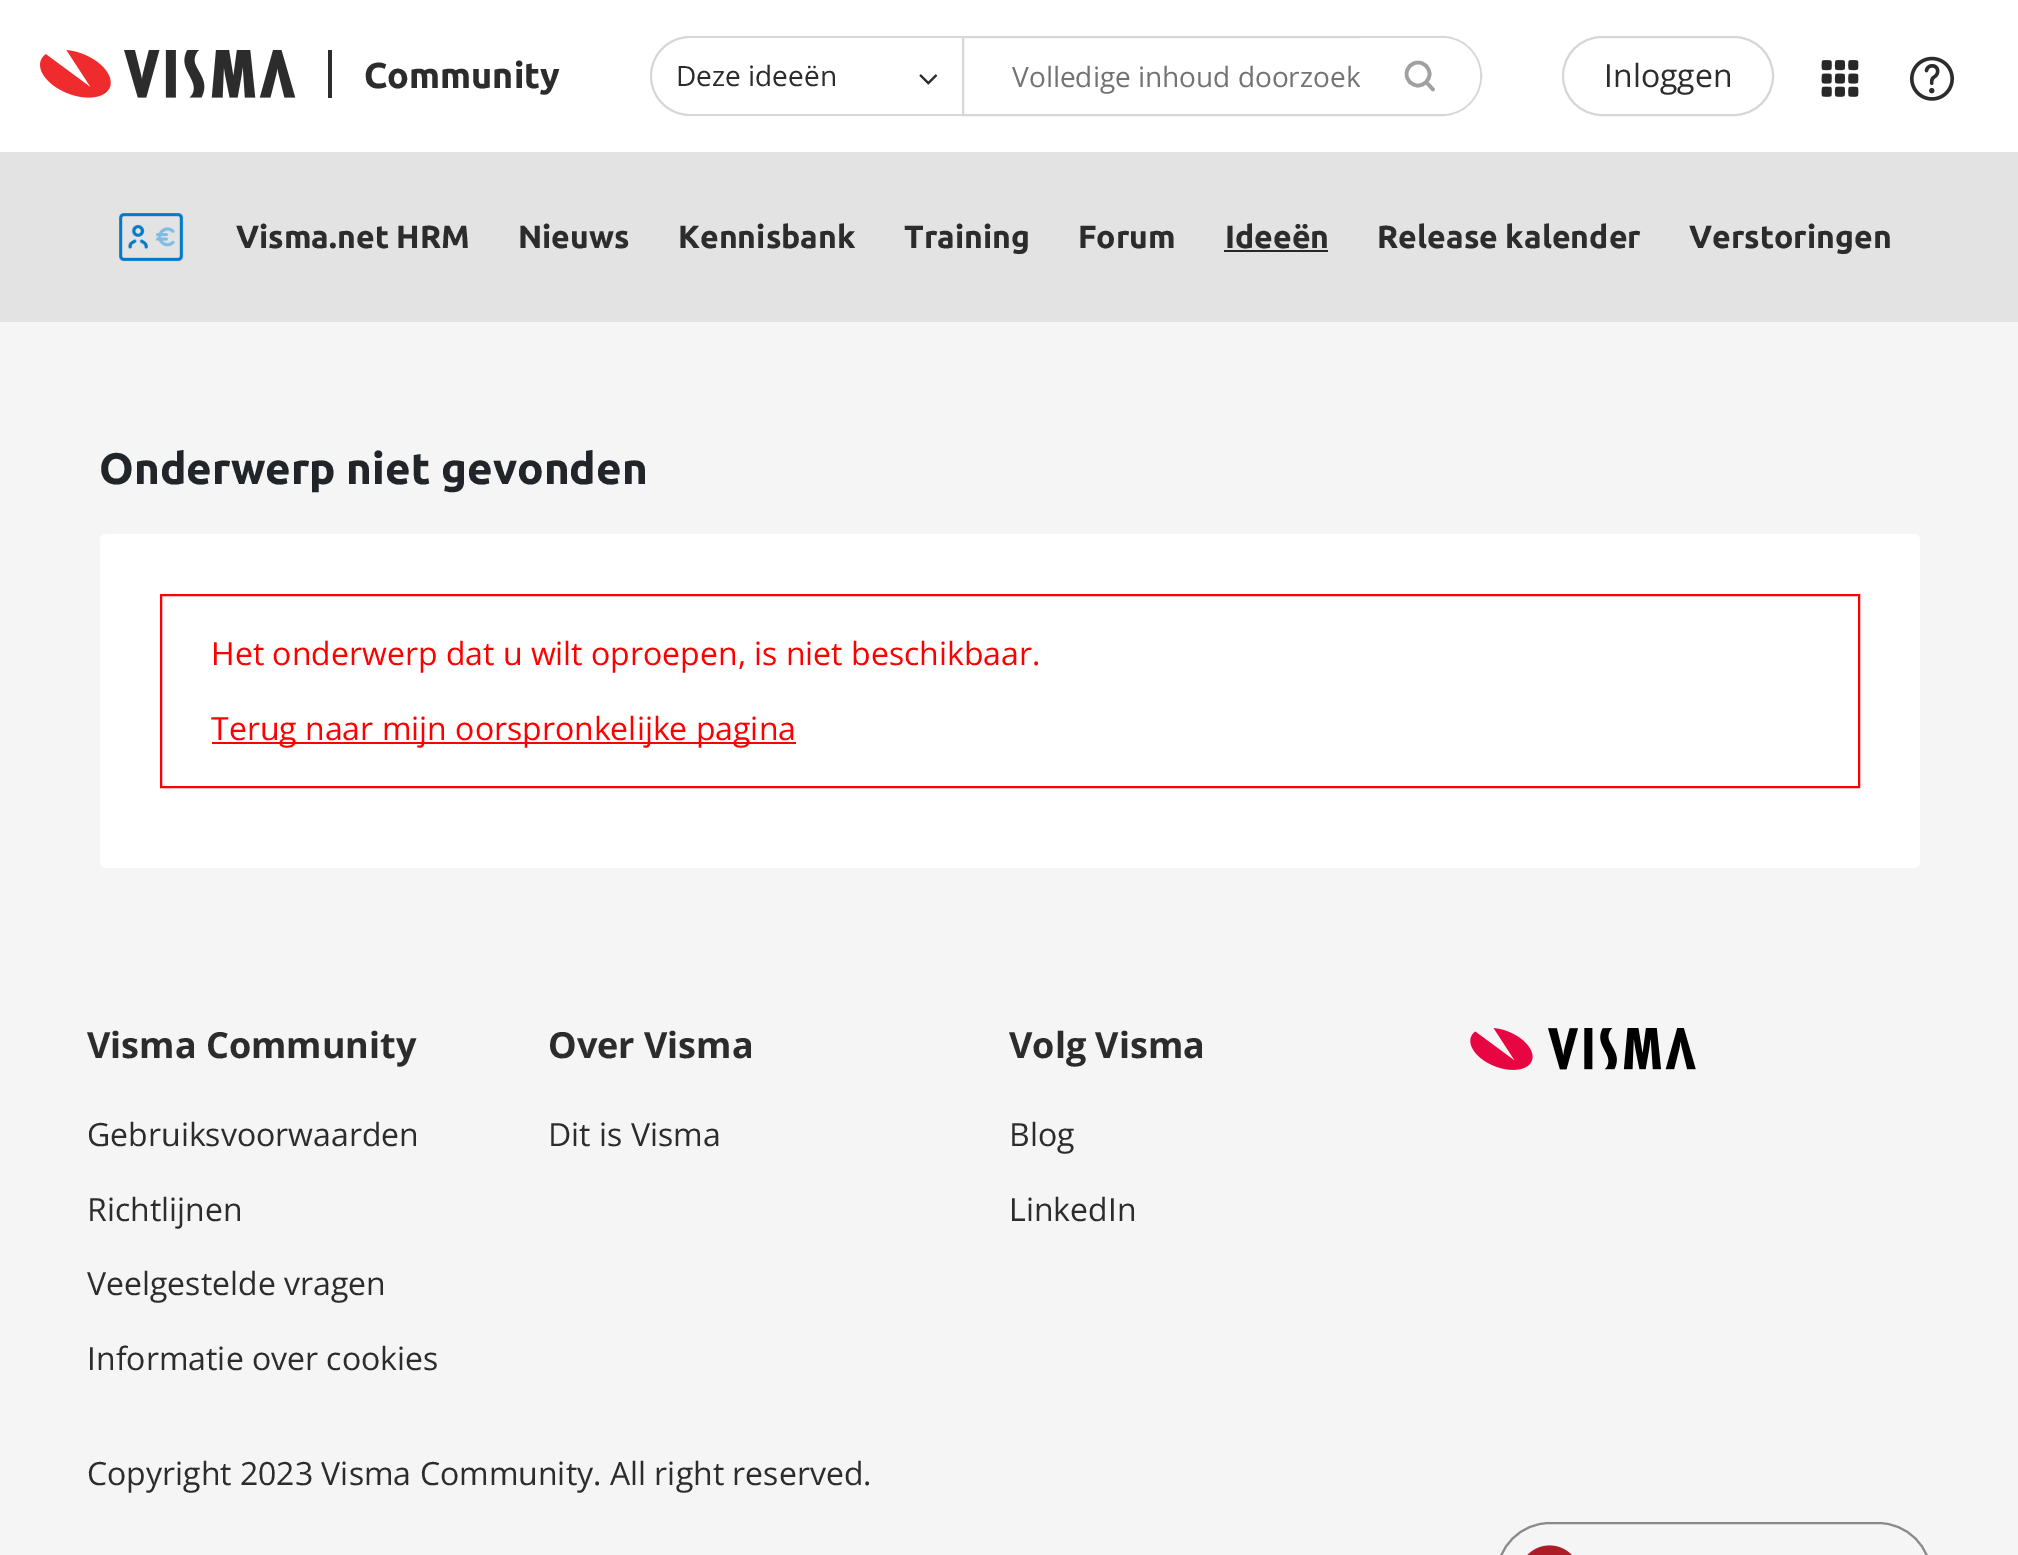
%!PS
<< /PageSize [2018 1555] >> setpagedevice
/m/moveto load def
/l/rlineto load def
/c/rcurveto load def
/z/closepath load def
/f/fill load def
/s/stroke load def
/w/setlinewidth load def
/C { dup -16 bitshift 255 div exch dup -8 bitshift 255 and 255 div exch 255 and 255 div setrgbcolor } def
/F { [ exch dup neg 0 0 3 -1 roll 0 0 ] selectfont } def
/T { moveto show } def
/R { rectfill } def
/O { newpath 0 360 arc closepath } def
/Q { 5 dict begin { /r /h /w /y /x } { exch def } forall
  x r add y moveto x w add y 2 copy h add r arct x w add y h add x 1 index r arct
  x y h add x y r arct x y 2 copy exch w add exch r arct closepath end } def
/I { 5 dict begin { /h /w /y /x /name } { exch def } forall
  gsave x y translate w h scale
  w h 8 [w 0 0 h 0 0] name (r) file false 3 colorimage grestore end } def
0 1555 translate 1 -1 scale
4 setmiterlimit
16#F5F5F5 C
0 0 2018 1555 R
16#FFFFFF C
0 0 2018 152 R
(1.rgb) 40 50 256 48 I
16#2C2C2C C
328 50 4 48 R
/Ubuntu-Bold 36 F
(Community) 364 88 T
(2.rgb) 919 74 19 11 I
16#D7D7D7 C
690 36 m 272 0 l 0 80 l -272 0 l -22 0 -40 -18 -40 -40 c 0 -22 18 -40 40 -40 c z 690 38 m 272 0 l 0 76 l -272 0 l -21 0 -38 -17 -38 -38 c 0 -21 17 -38 38 -38 c z eofill
/OpenSans-Regular 28 F
16#2C2C2C C
(Deze ideeën) 676 86 T
16#D7D7D7 C
2 w
963 37 m 479 0 l 21.5 0 39 17.5 39 39 c 0 21.5 -17.5 39 -39 39 c -479 0 l z s
16#737373 C
(Volledige inhoud doorzoek) 1012 87 T
16#FFFFFF C
1360 38 m 82 0 l 21 0 38 17 38 38 c 0 21 -17 38 -38 38 c -82 0 l z f
16#A0A0A0 C
3.6 w
1 setlinecap
1433 89.5 m -5 -5.5 l s
0 setlinecap
1418 74 11.5 O s
16#D7D7D7 C
2 w
1563 37 210 78 39 Q s
/OpenSans-Regular 32 F
16#2C2C2C C
(Inloggen) 1604 87 T
(3.rgb) 1821 60 38 37 I
(4.rgb) 1910 56 44 45 I
16#E3E3E3 C
0 152 2018 170 R
(5.rgb) 119 213 65 49 I
/Ubuntu-Bold 32 F
16#2C2C2C C
(Visma.net HRM) 236 248 T
(Nieuws) 518 248 T
(Kennisbank) 678 248 T
(Training) 904 248 T
(Forum) 1078 248 T
(Ideeën) 1225 248 T
16#282828 C
1224 250 104 2 R
16#2C2C2C C
(Release kalender) 1377 248 T
(Verstoringen) 1689 248 T
/Ubuntu-Bold 44 F
16#212529 C
(Onderwerp niet gevonden) 99 484 T
16#FFFFFF C
100 534 1820 334 6 Q f
16#FF0000 C
161 595 1698 192 rectstroke
/OpenSans-Regular 32 F
(Het onderwerp dat u wilt oproepen, is niet beschikbaar.) 211 665 T
212 742 584 2 R
(Terug naar mijn oorspronkelijke pagina) 211 740 T
/OpenSans-Bold 36 F
16#2C2C2C C
(Visma Community) 87 1058 T
/OpenSans-Regular 32 F
(Gebruiksvoorwaarden) 87 1146 T
(Richtlijnen) 87 1221 T
(Veelgestelde vragen) 87 1295 T
(Informatie over cookies) 87 1370 T
/OpenSans-Bold 36 F
(Over Visma) 548 1058 T
/OpenSans-Regular 32 F
(Dit is Visma) 548 1146 T
/OpenSans-Bold 36 F
(Volg Visma) 1009 1058 T
/OpenSans-Regular 32 F
(Blog) 1009 1146 T
(LinkedIn) 1009 1221 T
(6.rgb) 1470 1028 226 42 I
(Copyright 2023 Visma Community. All right reserved.) 87 1485 T
16#8A8A8A C
1497 1523 434 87 53 Q s
(7.rgb) 1527 1545 45 10 I
showpage
